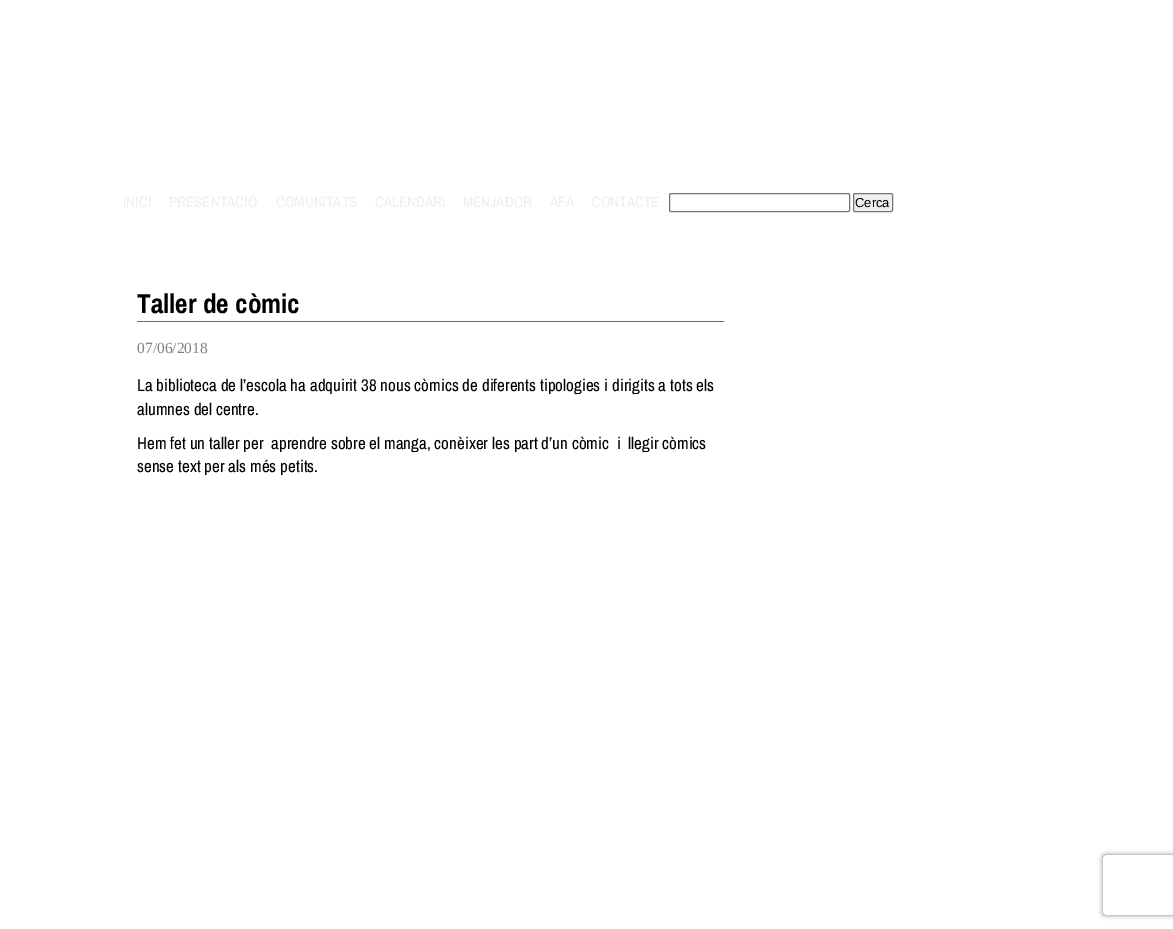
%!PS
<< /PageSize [1173 929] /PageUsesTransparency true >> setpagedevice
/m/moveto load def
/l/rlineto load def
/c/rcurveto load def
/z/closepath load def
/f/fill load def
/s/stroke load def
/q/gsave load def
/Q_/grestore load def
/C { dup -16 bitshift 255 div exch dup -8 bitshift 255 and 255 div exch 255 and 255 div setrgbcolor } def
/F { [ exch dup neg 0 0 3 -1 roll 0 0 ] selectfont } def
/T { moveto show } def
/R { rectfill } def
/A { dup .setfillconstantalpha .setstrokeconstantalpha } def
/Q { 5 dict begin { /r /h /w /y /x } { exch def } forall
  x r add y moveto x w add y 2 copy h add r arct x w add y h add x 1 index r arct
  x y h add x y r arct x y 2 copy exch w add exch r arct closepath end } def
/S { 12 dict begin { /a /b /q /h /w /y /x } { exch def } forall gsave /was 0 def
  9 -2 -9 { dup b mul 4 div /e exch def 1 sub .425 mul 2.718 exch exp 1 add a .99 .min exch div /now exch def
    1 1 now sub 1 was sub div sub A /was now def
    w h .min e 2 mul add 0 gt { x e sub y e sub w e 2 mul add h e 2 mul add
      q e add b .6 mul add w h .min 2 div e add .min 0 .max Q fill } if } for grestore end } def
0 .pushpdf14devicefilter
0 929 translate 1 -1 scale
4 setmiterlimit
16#FFFFFF C
0 0 1173 929 R
/ArchivoNarrow-Regular 15 F
16#EEEEEE C
(INICI) 123 207 T
(PRESENTACIÓ) 169 207 T
(COMUNITATS) 276 207 T
(CALENDARI) 375 207 T
(MENJADOR) 463 207 T
(AFA) 550 207 T
(CONTACTE) 592 207 T
16#767676 C
669.5 193.5 180 18 1.5 Q s
16#EFEFEF C
853.5 193.5 39 18 1.5 Q q f Q_
16#767676 C
s
/LiberationSans-Regular 13 F
16#000000 C
(Cerca) 855 207 T
16#666666 C
137 321 587 1 R
/ArchivoNarrow-Bold 27.25 F
16#000000 C
(Taller de còmic) 137 313 T
/LiberationSerif-Regular 15.5 F
16#808080 C
(07/06/2018) 137 353 T
/ArchivoNarrow-Regular 17 F
16#000000 C
(La biblioteca de l’escola ha adquirit 38 nous còmics de diferents tipologies i dirigits a tots els) 137 391 T
(alumnes del centre.) 137 415 T
(Hem fet un taller per  aprendre sobre el manga, conèixer les part d’un còmic  i  llegir còmics) 137 449 T
(sense text per als més petits.) 137 472 T
q
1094 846 m 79 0 l 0 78 l -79 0 l z 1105 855 m 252 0 l 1 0 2 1 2 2 c 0 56 l 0 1 -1 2 -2 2 c -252 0 l -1 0 -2 -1 -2 -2 c 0 -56 l 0 -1 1 -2 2 -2 c z eoclip newpath
16#808080 C
1103 855 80 60 2 2.5 1 S
Q_
.poppdf14devicefilter showpage
